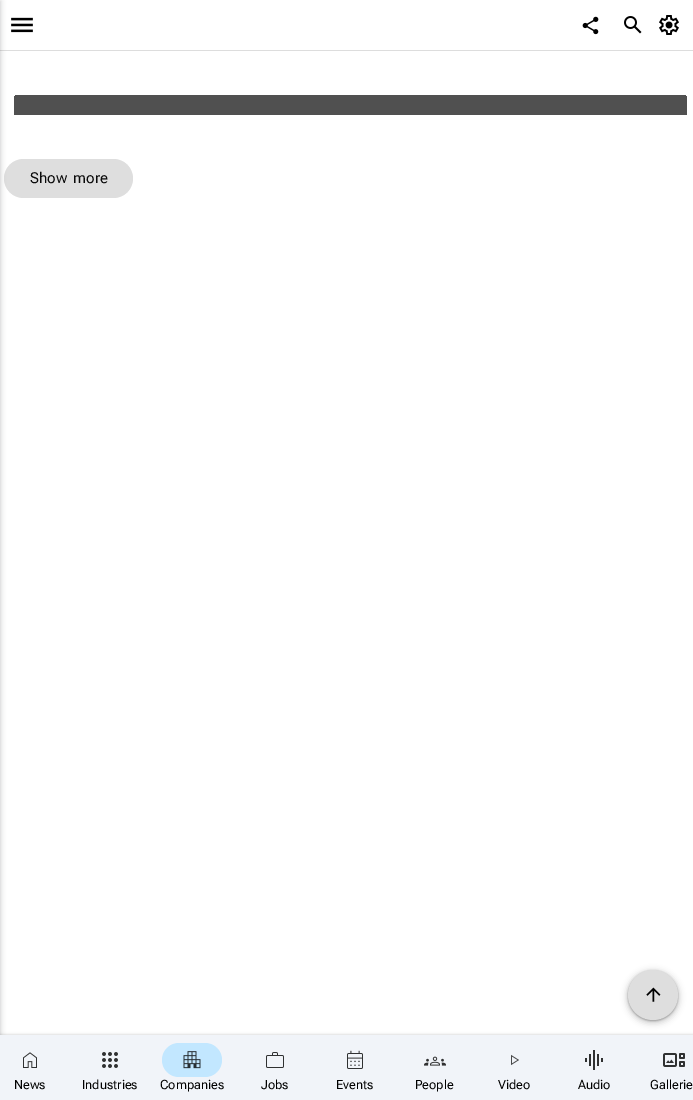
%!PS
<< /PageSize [693 1100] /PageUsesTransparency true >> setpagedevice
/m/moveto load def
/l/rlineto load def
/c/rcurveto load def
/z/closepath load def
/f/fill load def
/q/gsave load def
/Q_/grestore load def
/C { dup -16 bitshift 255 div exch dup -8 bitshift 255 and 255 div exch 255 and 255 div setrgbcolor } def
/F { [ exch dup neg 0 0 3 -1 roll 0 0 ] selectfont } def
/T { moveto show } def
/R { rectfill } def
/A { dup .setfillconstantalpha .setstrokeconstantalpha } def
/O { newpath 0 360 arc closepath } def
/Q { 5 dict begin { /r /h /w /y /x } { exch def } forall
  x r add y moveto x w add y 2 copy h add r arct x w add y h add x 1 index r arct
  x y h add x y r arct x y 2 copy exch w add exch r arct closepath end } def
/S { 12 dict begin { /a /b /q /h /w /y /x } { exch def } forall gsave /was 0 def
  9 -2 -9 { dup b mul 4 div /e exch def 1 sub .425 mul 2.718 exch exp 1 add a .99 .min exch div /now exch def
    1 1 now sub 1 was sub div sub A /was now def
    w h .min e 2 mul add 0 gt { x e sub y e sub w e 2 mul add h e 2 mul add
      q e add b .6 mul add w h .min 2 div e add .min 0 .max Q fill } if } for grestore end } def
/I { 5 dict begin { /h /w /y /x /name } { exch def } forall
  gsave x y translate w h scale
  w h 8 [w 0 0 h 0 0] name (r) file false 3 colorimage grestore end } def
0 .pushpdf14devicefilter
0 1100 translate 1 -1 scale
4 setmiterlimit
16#FFFFFF C
0 0 693 1100 R
16#DDDDDD C
0 50 693 1 R
16#DEDEDE C
4 159 129 39 19.5 Q f
16#202124 C
-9 1 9 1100 0 3 .28 S
(1.rgb) 11 17 22 16 I
(2.rgb) 582 16 17 19 I
(3.rgb) 624 16 18 18 I
(4.rgb) 659 15 20 20 I
q
21 95 m 659 0 l 9.5 0 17 7.5 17 17 c 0 13 l -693 0 l 0 -13 l 0 -9.5 7.5 -17 17 -17 c z clip newpath
16#505050 C
14 95 673 20 R
Q_
/RobotoFlex-Regular 15 F
16#0A0A0A C
30 183 m 2 0 32 .1 0 (Show more) awidthshow
16#000000 C
628 971 50 50 25 1 .3 S
626 970 54 54 27 3 .15 S
16#DEDEDE C
653 995 25 O f
(5.rgb) 646 987 15 15 I
16#000000 C
0 1035 693 65 0 1.5 .2 S
16#F1F4F9 C
0 1035 693 65 R
(6.rgb) 23 1052 14 16 I
/RobotoFlex-Regular 12.75 F
16#000000 C
(News) 14 1089 T
(7.rgb) 102 1052 16 16 I
(Industries) 82 1089 T
16#C2E7FF C
162 1043 60 34 17 Q f
(8.rgb) 183 1051 18 18 I
16#000000 C
(Companies) 160 1089 T
(9.rgb) 266 1052 18 16 I
(Jobs) 261 1089 T
(10.rgb) 347 1050 16 19 I
(Events) 336 1089 T
(11.rgb) 424 1056 22 10 I
(People) 415 1089 T
(12.rgb) 511 1054 8 12 I
(Video) 498 1089 T
(13.rgb) 585 1050 18 20 I
(Audio) 578 1089 T
(14.rgb) 663 1053 22 14 I
(Gallerie) 650 1089 T
.poppdf14devicefilter showpage
